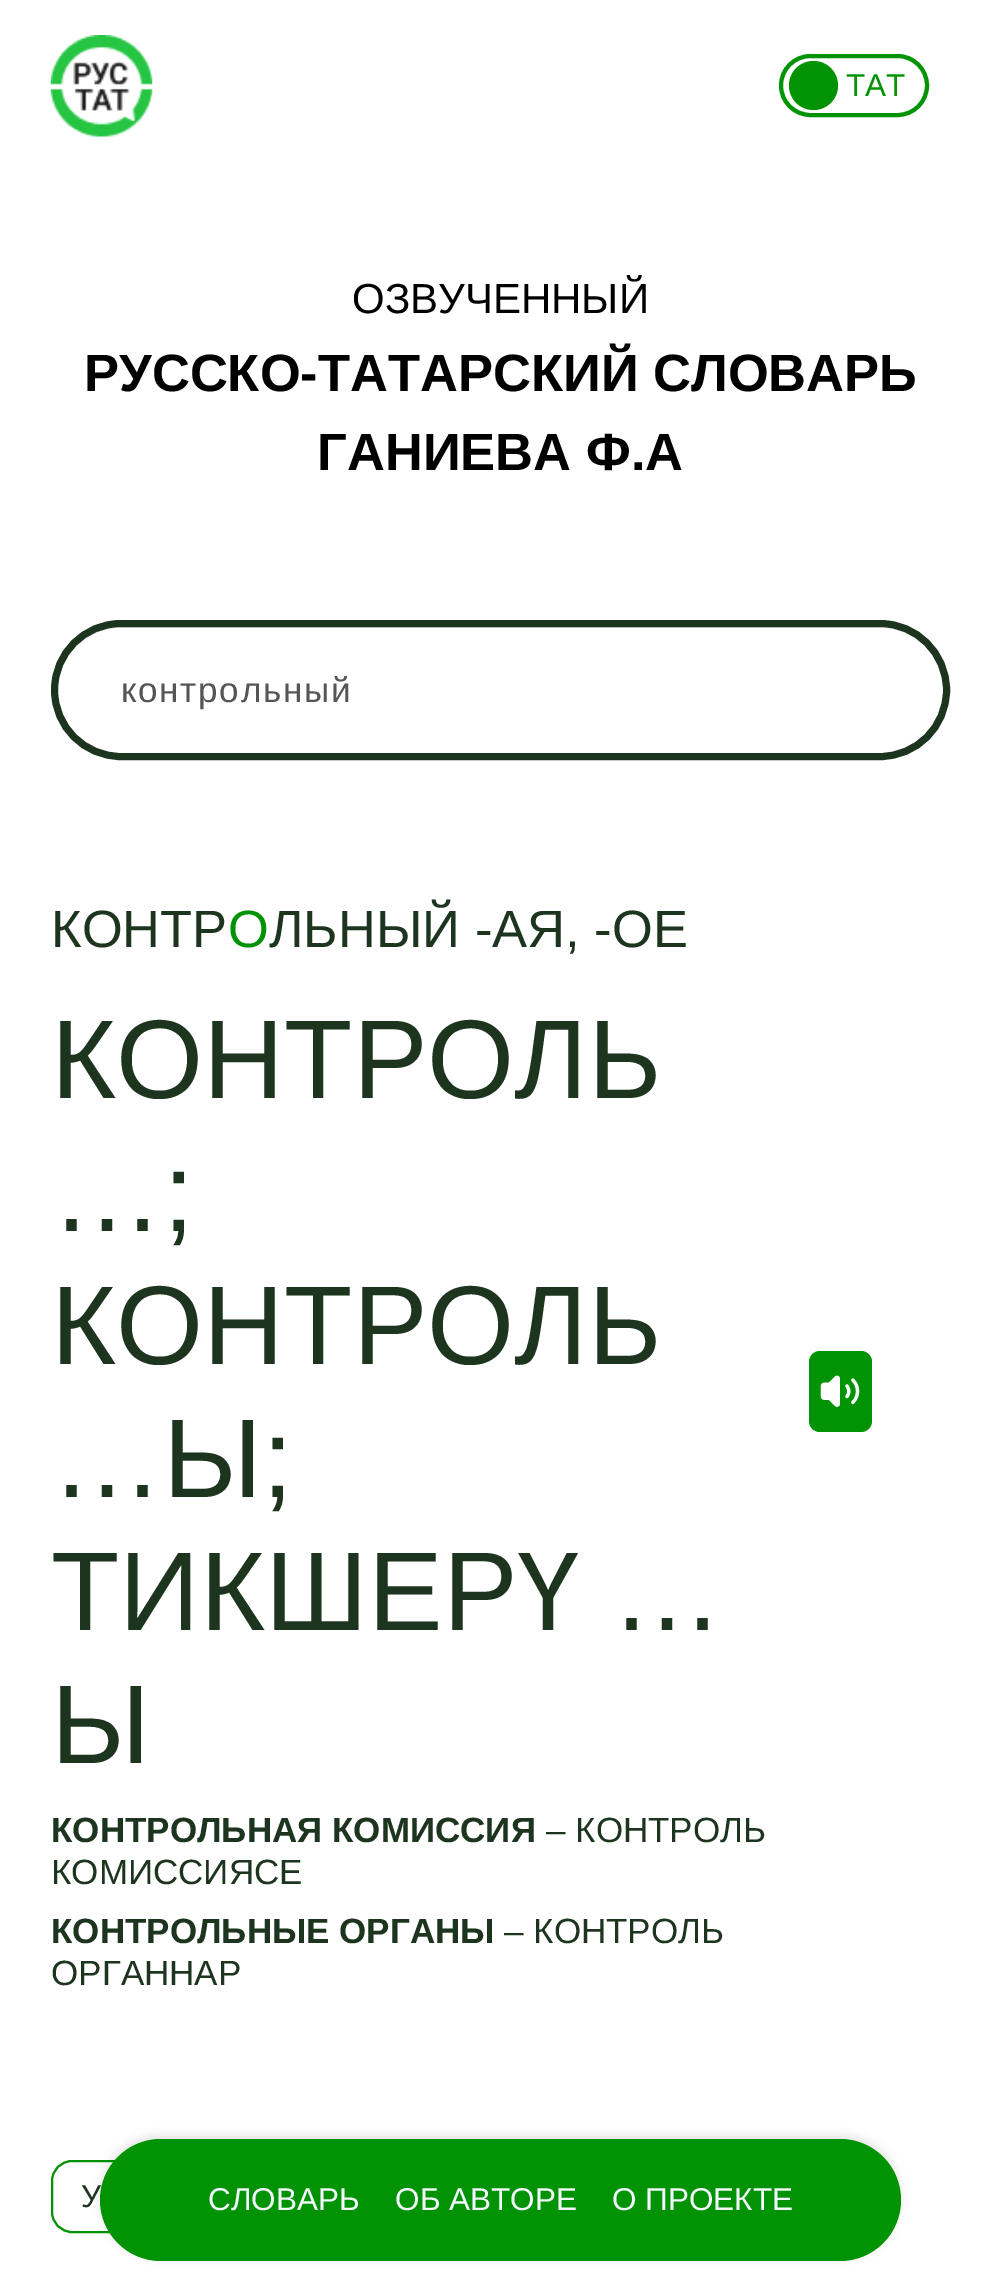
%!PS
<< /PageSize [1000 2295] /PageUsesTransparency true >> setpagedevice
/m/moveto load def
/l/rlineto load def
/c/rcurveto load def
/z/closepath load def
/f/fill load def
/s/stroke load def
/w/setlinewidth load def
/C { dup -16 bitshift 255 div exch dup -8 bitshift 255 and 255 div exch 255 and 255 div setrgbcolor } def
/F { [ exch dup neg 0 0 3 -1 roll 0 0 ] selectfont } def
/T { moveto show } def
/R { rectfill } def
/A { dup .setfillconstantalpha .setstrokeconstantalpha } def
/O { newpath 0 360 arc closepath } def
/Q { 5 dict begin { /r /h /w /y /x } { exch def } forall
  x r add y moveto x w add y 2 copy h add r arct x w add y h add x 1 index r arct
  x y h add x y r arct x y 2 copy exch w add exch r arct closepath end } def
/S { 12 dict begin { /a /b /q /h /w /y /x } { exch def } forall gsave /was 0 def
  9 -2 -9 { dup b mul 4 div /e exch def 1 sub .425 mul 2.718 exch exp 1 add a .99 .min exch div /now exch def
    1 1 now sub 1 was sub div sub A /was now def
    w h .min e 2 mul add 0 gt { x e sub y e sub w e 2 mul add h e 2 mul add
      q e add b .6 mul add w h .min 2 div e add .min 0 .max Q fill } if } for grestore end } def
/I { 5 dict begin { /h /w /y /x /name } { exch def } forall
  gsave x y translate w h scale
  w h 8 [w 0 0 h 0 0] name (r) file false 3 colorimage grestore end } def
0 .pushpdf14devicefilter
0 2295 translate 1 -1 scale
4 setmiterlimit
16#FFFFFF C
0 0 1000 2295 R
(1.rgb) 50 35 103 102 I
16#019303 C
4 w
781 56 146 59 29.5 Q s
813.5 85.5 24.5 O f
/LiberationSans-Regular 31.5 F
(ТАТ) 846 96 T
/LiberationSans-Regular 42 F
16#000000 C
(ОЗВУЧЕННЫЙ) 352 313 T
/LiberationSans-Bold 52.5 F
(РУССКО-ТАТАРСКИЙ СЛОВАРЬ) 84 391 T
(ГАНИЕВА Ф.А) 317 470 T
16#ECECEC C
121 628 m 759 0 l 35 0 63 28 63 62 c 0 -35 -28 -63 -63 -63 c -759 0 l -35 0 -63 28 -63 63 c 0 -34 28 -62 63 -62 c z f
16#1D351E C
7 w
54.5 623.5 892 133 66.5 Q s
/LiberationSans-Regular 35 F
16#555555 C
121 702 m 1.75 0 (контрольный) ashow
/LiberationSans-Regular 52.5 F
16#1D351E C
(КОНТР) 51 947 T
16#019303 C
(О) 228 947 T
16#1D351E C
(ЛЬНЫЙ -АЯ, -ОЕ) 269 947 T
/LiberationSans-Regular 112 F
(КОНТРОЛЬ) 51 1098 T
(…;) 51 1231 T
(КОНТРОЛЬ) 51 1364 T
16#019303 C
809 1351 63 81 11 Q f
(2.rgb) 820 1375 40 32 I
16#1D351E C
(…Ы;) 51 1497 T
(ТИКШЕРҮ …) 51 1630 T
(Ы) 51 1763 T
/LiberationSans-Bold 35 F
(КОНТРОЛЬНАЯ КОМИССИЯ) 51 1842 T
/LiberationSans-Regular 35 F
(– КОНТРОЛЬ) 546 1842 T
(КОМИССИЯСЕ) 51 1884 T
/LiberationSans-Bold 35 F
(КОНТРОЛЬНЫЕ ОРГАНЫ) 51 1943 T
/LiberationSans-Regular 35 F
(– КОНТРОЛЬ) 504 1943 T
(ОРГАННАР) 51 1985 T
16#019303 C
2 w
52 2161 460 71 20 Q s
/LiberationSans-Regular 31.5 F
16#1D351E C
(У) 81 2207 T
16#000000 C
100 2135 801 123 61.5 4.5 .1 S
16#019303 C
100 2139 801 122 61 Q f
16#F3F9FF C
(СЛОВАРЬ) 208 2210 T
(ОБ АВТОРЕ) 395 2210 T
(О ПРОЕКТЕ) 612 2210 T
.poppdf14devicefilter showpage
